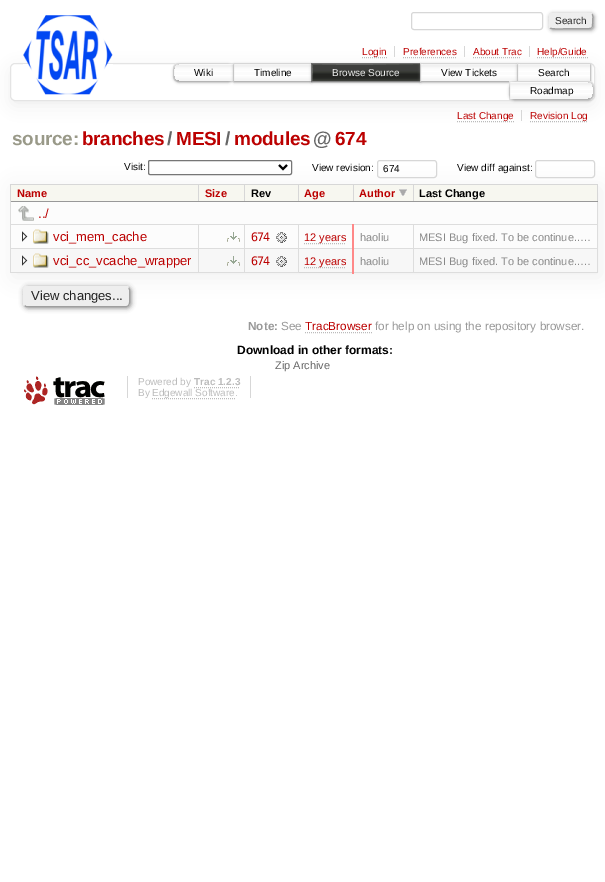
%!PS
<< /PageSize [605 882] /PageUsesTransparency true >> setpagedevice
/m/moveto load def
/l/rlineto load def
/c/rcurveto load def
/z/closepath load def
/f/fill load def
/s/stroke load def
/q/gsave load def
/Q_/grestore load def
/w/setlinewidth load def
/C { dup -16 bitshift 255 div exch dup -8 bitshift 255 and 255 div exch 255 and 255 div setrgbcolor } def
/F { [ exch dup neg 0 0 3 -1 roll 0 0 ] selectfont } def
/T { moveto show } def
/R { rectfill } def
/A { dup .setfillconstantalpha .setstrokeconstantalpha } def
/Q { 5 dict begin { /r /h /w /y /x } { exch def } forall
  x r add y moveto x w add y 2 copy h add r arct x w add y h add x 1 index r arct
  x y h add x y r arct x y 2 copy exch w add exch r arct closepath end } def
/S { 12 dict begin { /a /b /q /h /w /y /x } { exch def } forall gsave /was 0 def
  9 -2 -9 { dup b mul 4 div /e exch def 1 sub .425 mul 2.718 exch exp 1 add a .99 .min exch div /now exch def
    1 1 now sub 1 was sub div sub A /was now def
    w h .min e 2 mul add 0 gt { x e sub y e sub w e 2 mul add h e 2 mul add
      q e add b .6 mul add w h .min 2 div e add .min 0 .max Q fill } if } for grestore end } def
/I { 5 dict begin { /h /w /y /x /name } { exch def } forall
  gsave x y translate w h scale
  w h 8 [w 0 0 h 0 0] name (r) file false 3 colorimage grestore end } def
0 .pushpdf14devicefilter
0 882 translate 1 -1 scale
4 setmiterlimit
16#FFFFFF C
0 0 605 882 R
q
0 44 m 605 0 l 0 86 l -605 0 l z 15 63 m 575 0 l 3 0 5 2 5 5 c 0 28 l 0 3 -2 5 -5 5 c -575 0 l -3 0 -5 -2 -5 -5 c 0 -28 l 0 -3 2 -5 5 -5 c z eoclip newpath
16#EEEEEE C
10 68 585 38 5 7.5 1 S
Q_
16#E4E4E4 C
10.5 63.5 584 37 4.5 Q s
(1.rgb) 23 15 90 80 I
16#D7D7D7 C
411.5 12.5 131 17 2.5 Q s
16#888888 C
550 14 44 16 3 2 1 S
16#EEEEEE C
549 13 44 16 3 Q f
16#9F9F9F C
592 14 m 1.5 2 .5 5 .5 7 c 0 8.5 .5 7.5 -9 7.5 c -12.5 0 l -3 0 -19 1 -21 -.5 c s
16#EEEEEE C
550 28 m -1.5 -2 -.5 -5 -.5 -7 c 0 -8.5 -.5 -7.5 9 -7.5 c 12.5 0 l 3 0 19 -1 21 .5 c s
/LiberationSans-Regular 10 F
16#222222 C
(Search) 555 24 T
16#D7D7D7 C
394 46 1 11 R
16#BBBBBB C
[1 1] 0 setdash
362 57.5 m 25 0 l s
16#BB0000 C
(Login) 362 55 T
16#D7D7D7 C
464 46 1 11 R
16#BB0000 C
(Preferences) 403 55 T
16#BBBBBB C
403 57.5 m 54 0 l s
16#D7D7D7 C
529 46 1 11 R
16#BB0000 C
(About Trac) 473 55 T
16#BBBBBB C
473 57.5 m 48 0 l s
537 57.5 m 51 0 l s
16#BB0000 C
(Help/Guide) 537 55 T
16#FFFFFF C
178 63 m 56 0 l 0 19 l -56 0 l -3 0 -5 -2 -5 -5 c 0 -9 l 0 -3 2 -5 5 -5 c z f
(2.rgb) 173 65 60 17 I
16#E4E4E4 C
[] 0 setdash
178 63.5 m 55.5 0 l 0 18 l -55.5 0 l -2.5 0 -4.5 -2 -4.5 -4.5 c 0 -9 l 0 -2.5 2 -4.5 4.5 -4.5 c z s
q
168 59 m 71 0 l 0 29 l -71 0 l z 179 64 m 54 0 l 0 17 l -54 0 l -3 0 -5 -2 -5 -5 c 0 -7 l 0 -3 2 -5 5 -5 c z eoclip newpath
16#999999 C
174 65 59 17 5 1.5 1 S
Q_
16#000000 C
(Wiki) 194 76 T
16#FFFFFF C
234 66 2 15 R
(3.rgb) 234 65 77 16 I
16#E4E4E4 C
233.5 63.5 78 18 rectstroke
q
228 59 m 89 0 l 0 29 l -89 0 l z 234 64 m 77 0 l 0 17 l -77 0 l z eoclip newpath
16#999999 C
234 65 77 17 0 1.5 1 S
Q_
16#000000 C
(Timeline) 254 76 T
16#666666 C
311.5 63.5 109 18 rectstroke
16#999999 C
312 65 108 17 0 1.5 1 S
16#000000 C
312 64 108 17 R
(4.rgb) 312 64 108 17 I
16#EEEEEE C
(Browse Source) 332 76 T
16#FFFFFF C
421 64 2 17 R
(5.rgb) 421 65 96 16 I
16#E4E4E4 C
420.5 63.5 97 18 rectstroke
q
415 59 m 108 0 l 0 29 l -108 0 l z 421 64 m 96 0 l 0 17 l -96 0 l z eoclip newpath
16#999999 C
421 65 96 17 0 1.5 1 S
Q_
16#000000 C
(View Tickets) 441 76 T
16#FFFFFF C
518 64 2 17 R
(6.rgb) 518 65 72 16 I
16#E4E4E4 C
517.5 63.5 73 18 rectstroke
q
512 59 m 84 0 l 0 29 l -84 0 l z 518 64 m 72 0 l 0 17 l -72 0 l z eoclip newpath
16#999999 C
518 65 72 17 0 1.5 1 S
Q_
16#000000 C
(Search) 538 76 T
16#FFFFFF C
509 81 m 80 0 l 3 0 5 2 5 5 c 0 9 l 0 3 -2 5 -5 5 c -80 0 l z f
(7.rgb) 510 83 84 17 I
16#E4E4E4 C
509.5 81.5 m 79.5 0 l 2.5 0 4.5 2 4.5 4.5 c 0 9 l 0 2.5 -2 4.5 -4.5 4.5 c -79.5 0 l z s
q
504 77 m 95 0 l 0 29 l -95 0 l z 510 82 m 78 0 l 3 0 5 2 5 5 c 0 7 l 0 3 -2 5 -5 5 c -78 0 l z eoclip newpath
16#999999 C
510 83 83 17 5 1.5 1 S
Q_
16#000000 C
(Roadmap) 530 94 T
16#D7D7D7 C
521 110 1 11 R
16#BBBBBB C
[1 1] 0 setdash
457 121.5 m 57 0 l s
16#BB0000 C
(Last Change) 457 119 T
16#BBBBBB C
530 121.5 m 58 0 l s
16#BB0000 C
(Revision Log) 530 119 T
/LiberationSans-Bold 19 F
16#999988 C
12 145 m -.25 0 (source:) ashow
16#BB0000 C
82 145 m -.25 0 (branches) ashow
16#666666 C
167 145 m -.25 0 (/) ashow
16#BB0000 C
176 145 m -.25 0 (MESI) ashow
16#666666 C
225 145 m -.25 0 (/) ashow
16#BB0000 C
234 145 m -.25 0 (modules) ashow
16#666666 C
313 145 m -.25 0 (@) ashow
16#BB0000 C
335 145 m -.25 0 (674) ashow
16#EEEEEE C
13 188 588 89 0 10 1 S
/LiberationSans-Regular 10 F
16#000000 C
(Visit:) 124 170 T
16#767676 C
[] 0 setdash
148.5 160.5 143 14 1.5 Q s
16#000000 C
2 w
279 165 m 4 4 l 4 -4 l s
(View revision:) 312 171 T
16#D7D7D7 C
1 w
377.5 160.5 59 17 2.5 Q s
16#000000 C
(674) 383 172 T
(View diff against:) 457 171 T
16#D7D7D7 C
535.5 160.5 59 17 2.5 Q s
299 272 53 1 R
16#F7F7F0 C
11 185 586 16 R
16#D7D7D7 C
413 184 185 1 R
16#DDDDDD C
10 224 588 1 R
10 248 588 1 R
597 201 1 72 R
16#D7D7D7 C
597 184 1 18 R
16#999999 C
413 201 185 1 R
16#D7D7D7 C
413 184 1 18 R
353 184 61 1 R
16#999999 C
353 201 61 1 R
16#D7D7D7 C
353 184 1 18 R
298 184 56 1 R
16#999999 C
298 201 56 1 R
16#D7D7D7 C
298 184 1 18 R
244 184 55 1 R
16#999999 C
244 201 55 1 R
16#D7D7D7 C
244 184 1 18 R
198 184 47 1 R
16#999999 C
198 201 47 1 R
16#D7D7D7 C
198 184 1 18 R
10 184 189 1 R
16#FCFCFC C
11 225 586 23 R
16#F7F7F7 C
11 249 586 23 R
16#DDDDDD C
298 224 1 49 R
244 272 55 1 R
244 224 1 49 R
198 272 47 1 R
198 224 1 49 R
10 272 189 1 R
10 201 1 72 R
16#999999 C
10 201 189 1 R
16#D7D7D7 C
10 184 1 18 R
/LiberationSans-Bold 11 F
16#BB0000 C
(Name) 17 197 T
(Size) 205 197 T
16#000000 C
(Rev) 251 197 T
16#BB0000 C
(Age) 304 197 T
(Author) 359 197 T
(8.rgb) 399 189 8 7 I
16#000000 C
(Last Change) 419 197 T
16#FCFCFC C
11 202 586 22 R
(9.rgb) 18 206 16 15 I
/LiberationSans-Regular 13 F
16#BB0000 C
(../) 38 218 T
(10.rgb) 22 231 6 11 I
(11.rgb) 33 229 16 15 I
(vci_mem_cache) 53 241 T
(12.rgb) 227 232 13 10 I
/DejaVuSansMono-Regular 11.75 F
251 241 m -1 0 (674) ashow
(13.rgb) 276 232 11 11 I
16#BBBBBB C
[1 1] 0 setdash
304 243.5 m 42 0 l s
/LiberationSans-Regular 11 F
16#BB0000 C
(12 years) 304 241 T
16#888888 C
(haoliu) 360 241 T
(MESI Bug fixed. To be continue..…) 419 241 T
(14.rgb) 22 255 6 11 I
(15.rgb) 33 253 16 15 I
/LiberationSans-Regular 13 F
16#BB0000 C
(vci_cc_vcache_wrapper) 53 265 T
(16.rgb) 227 256 13 10 I
/DejaVuSansMono-Regular 11.75 F
251 265 m -1 0 (674) ashow
(17.rgb) 276 256 11 11 I
16#DDDDDD C
413 272 185 1 R
413 224 1 49 R
353 272 61 1 R
16#FF8888 C
352 224 2 50 R
16#BBBBBB C
304 267.5 m 42 0 l s
/LiberationSans-Regular 11 F
16#BB0000 C
(12 years) 304 265 T
16#888888 C
(haoliu) 360 265 T
(MESI Bug fixed. To be continue..…) 419 265 T
24 287 107 21 4 2.5 1 S
16#EEEEEE C
23 286 107 21 4 Q f
16#9F9F9F C
[] 0 setdash
128.5 287.5 m 2 2 1 8.5 1 11 c 0 3 1 8 -3.5 8 c -100 0 l -1.5 -1 l s
16#EEEEEE C
24.5 305.5 m -2 -2 -1 -8.5 -1 -11 c 0 -3 -1 -8 3.5 -8 c 100 0 l 1.5 1 l s
/LiberationSans-Regular 13 F
16#222222 C
(View changes...) 31 300 T
/LiberationSans-Bold 11.75 F
16#999999 C
(Note:) 248 330 T
/LiberationSans-Regular 11.75 F
(See) 281 330 T
16#BB0000 C
(TracBrowser) 305 330 T
16#BBBBBB C
[1 1] 0 setdash
305 332.5 m 67 0 l s
16#999999 C
(for help on using the repository browser.) 375 330 T
/LiberationSans-Bold 12 F
16#000000 C
(Download in other formats:) 237 354 T
/LiberationSans-Regular 11 F
16#666666 C
(Zip Archive) 275 369 T
(18.rgb) 24 376 81 29 I
16#D7D7D7 C
250 376 1 22 R
127 376 1 22 R
/LiberationSans-Regular 10 F
16#BBBBBB C
(Powered by) 138 385 T
/LiberationSans-Bold 10 F
(Trac 1.2.3) 194 385 T
194 387.5 m 46 0 l s
/LiberationSans-Regular 10 F
(By) 138 396 T
152 398.5 m 83 0 l s
(Edgewall Software.) 152 396 T
.poppdf14devicefilter showpage
